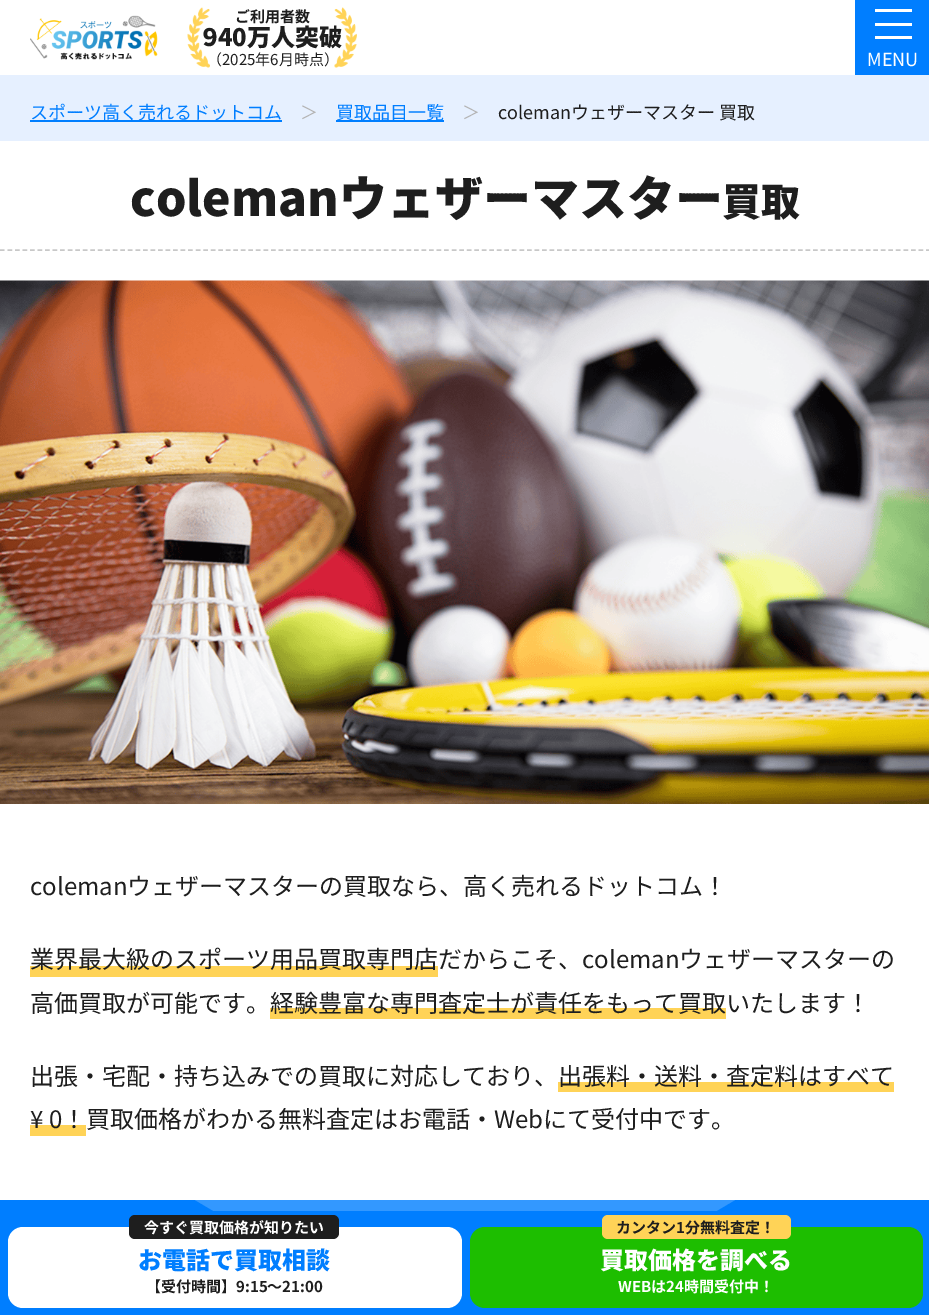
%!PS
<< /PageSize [929 1315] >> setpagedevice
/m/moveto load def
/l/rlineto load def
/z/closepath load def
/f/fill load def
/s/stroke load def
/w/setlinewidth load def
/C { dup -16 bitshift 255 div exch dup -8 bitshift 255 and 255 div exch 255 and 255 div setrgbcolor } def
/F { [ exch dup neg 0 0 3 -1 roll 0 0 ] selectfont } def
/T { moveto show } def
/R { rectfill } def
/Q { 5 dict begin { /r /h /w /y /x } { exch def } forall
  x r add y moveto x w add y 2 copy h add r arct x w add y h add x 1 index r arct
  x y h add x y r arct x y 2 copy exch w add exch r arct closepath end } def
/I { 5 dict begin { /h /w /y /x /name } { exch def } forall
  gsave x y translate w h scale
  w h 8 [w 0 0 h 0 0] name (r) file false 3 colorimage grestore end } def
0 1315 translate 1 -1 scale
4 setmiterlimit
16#FFFFFF C
0 0 929 1315 R
(1.rgb) 30 15 128 45 I
/NotoSansJP-Black 24 F
16#1E1E1E C
(940万人突破) 203 46 T
(2.rgb) 187 7 23 61 I
/NotoSansJP-Bold 15 F
(ご利用者数) 235 22 T
(3.rgb) 334 7 23 61 I
/NotoSansJP-Regular 15 F
(（2025年6月時点）) 207 65 T
16#007EFF C
855 0 74 75 R
16#FFFFFF C
875 36 37 3 R
875 9 37 3 R
875 23 37 3 R
/NotoSansJP-Regular 18 F
(MENU) 867 66 T
16#007EFF C
0 1200 929 11 R
16#3398FF C
195 1200 m 540 0 l -270 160 l z f
16#007EFF C
0 1211 929 104 R
16#FFFFFF C
8 1227 454 81 15 Q f
16#1E1E1E C
129 1215 210 24 6 Q f
/NotoSansJP-Bold 15 F
16#FFFFFF C
(今すぐ買取価格が知りたい) 144 1233 T
/NotoSansJP-Black 24 F
16#007EFF C
(お電話で買取相談) 138 1269 T
/NotoSansJP-Bold 15 F
16#1E1E1E C
(【受付時間】9:15～21:00) 146 1292 T
16#1DBE00 C
470 1227 453 81 15 Q f
16#FFD357 C
602 1215 189 24 6 Q f
16#1E1E1E C
(カンタン1分無料査定！) 616 1233 T
/NotoSansJP-Black 24 F
16#FFFFFF C
(買取価格を調べる) 600 1269 T
/NotoSansJP-Bold 15 F
(WEBは24時間受付中！) 618 1292 T
16#E6F0FF C
0 75 929 66 R
16#007EFF C
30 120 252 2 R
/NotoSansJP-Regular 18 F
(スポーツ高く売れるドットコム) 30 119 T
16#B4B4B4 C
(＞) 300 119 T
16#007EFF C
336 120 108 2 R
(買取品目一覧) 336 119 T
16#B4B4B4 C
(＞) 462 119 T
16#1E1E1E C
(colemanウェザーマスター 買取) 498 119 T
16#C8C8C8 C
1.5 w
[4.5 3.03] 0 setdash
0 250 m 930 0 l s
/NotoSansJP-Black 48 F
16#1E1E1E C
(colemanウェザーマスター) 130 216 T
/NotoSansJP-Black 39 F
(買取) 722 216 T
(4.rgb) 0 280 929 524 I
/NotoSansJP-Regular 24 F
(colemanウェザーマスターの買取なら、高く売れるドットコム！) 30 895 T
16#FFD357 C
30 966 408 11 R
16#1E1E1E C
(業界最大級のスポーツ用品買取専門店だからこそ、colemanウェザーマスターの) 30 968 T
(高価買取が可能です。) 30 1012 T
16#FFD357 C
270 1008 456 11 R
16#1E1E1E C
(経験豊富な専門査定士が責任をもって買取いたします！) 270 1012 T
(出張・宅配・持ち込みでの買取に対応しており、) 30 1085 T
16#FFD357 C
558 1082 336 10 R
16#1E1E1E C
(出張料・送料・査定料はすべて) 558 1085 T
16#FFD357 C
30 1125 56 11 R
16#1E1E1E C
(¥ 0！買取価格がわかる無料査定はお電話・Webにて受付中です。) 30 1128 T
showpage
